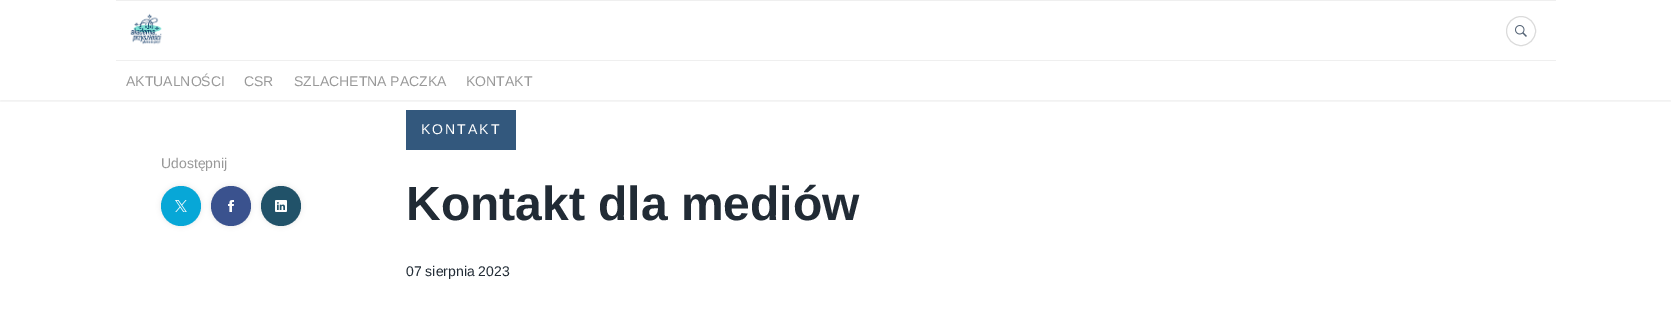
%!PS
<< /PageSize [1671 320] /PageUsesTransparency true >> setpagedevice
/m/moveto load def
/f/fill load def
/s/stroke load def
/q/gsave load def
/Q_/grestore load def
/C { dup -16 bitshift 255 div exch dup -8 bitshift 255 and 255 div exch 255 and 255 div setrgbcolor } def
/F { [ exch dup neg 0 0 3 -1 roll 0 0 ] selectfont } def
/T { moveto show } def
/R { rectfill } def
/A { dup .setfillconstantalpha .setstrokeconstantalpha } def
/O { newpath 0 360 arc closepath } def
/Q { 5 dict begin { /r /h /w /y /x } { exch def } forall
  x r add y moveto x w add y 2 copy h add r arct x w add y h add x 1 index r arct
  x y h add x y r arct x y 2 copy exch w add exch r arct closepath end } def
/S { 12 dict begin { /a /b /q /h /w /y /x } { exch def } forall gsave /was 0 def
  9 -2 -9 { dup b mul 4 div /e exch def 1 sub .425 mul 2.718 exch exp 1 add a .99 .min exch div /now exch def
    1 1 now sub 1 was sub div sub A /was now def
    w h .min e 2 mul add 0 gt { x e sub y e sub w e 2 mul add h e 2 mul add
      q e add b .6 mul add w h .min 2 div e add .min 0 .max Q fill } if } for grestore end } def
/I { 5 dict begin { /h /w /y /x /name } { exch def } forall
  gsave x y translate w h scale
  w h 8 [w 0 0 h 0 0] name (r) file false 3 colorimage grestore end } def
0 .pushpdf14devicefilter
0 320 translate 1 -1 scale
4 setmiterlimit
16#FFFFFF C
0 0 1671 320 R
q
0 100 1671 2 rectclip
16#000000 C
0 2 1671 100 0 1 .06 S
Q_
16#EFEFEF C
116 0 1440 1 R
(1.rgb) 130 13 32 32 I
16#DBDBDB C
1521 31 14.5 O s
(2.rgb) 1515 25 12 12 I
16#EFEFEF C
116 60 1440 1 R
/LiberationSans-Regular 14 F
16#999999 C
(AKTUALNOŚCI) 126 86 T
(CSR) 244 86 T
(SZLACHETNA PACZKA) 294 86 T
(KONTAKT) 466 86 T
(Udostępnij) 161 168 T
16#000000 C
161 186 40 40 20 2.5 .1 S
16#07A7D7 C
181 206 20 O f
(3.rgb) 175 200 12 12 I
16#000000 C
211 186 40 40 20 2.5 .1 S
16#3A528E C
231 206 20 O f
(4.rgb) 228 200 6 12 I
16#000000 C
261 186 40 40 20 2.5 .1 S
16#215269 C
281 206 20 O f
(5.rgb) 275 200 12 12 I
16#33587D C
406 110 110 40 R
16#FFFFFF C
421 134 m 2 0 (KONTAKT) ashow
/LiberationSans-Bold 48 F
16#212B35 C
(Kontakt dla mediów) 406 220 T
/LiberationSans-Regular 14 F
(07 sierpnia 2023) 406 276 T
.poppdf14devicefilter showpage
